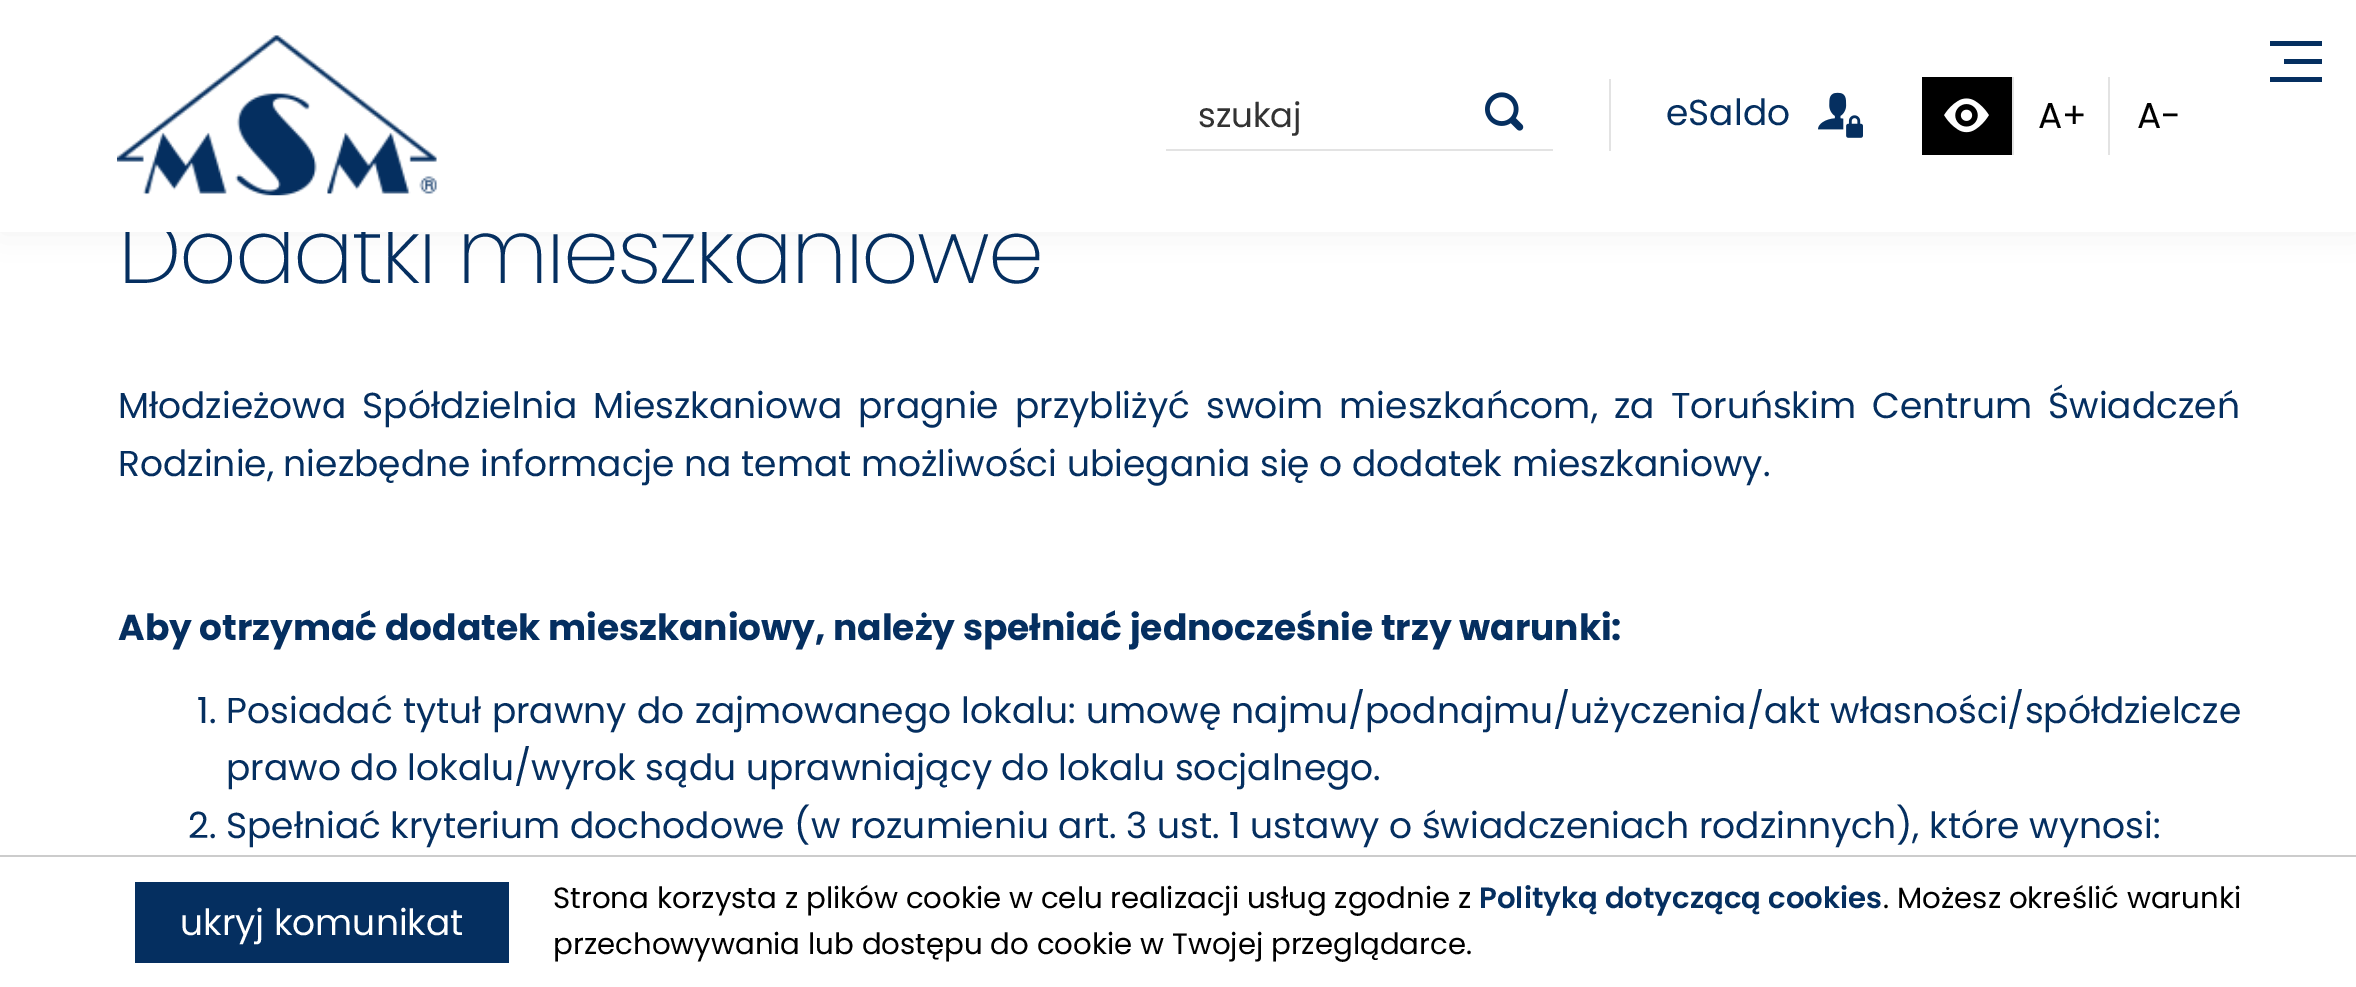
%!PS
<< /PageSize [2356 987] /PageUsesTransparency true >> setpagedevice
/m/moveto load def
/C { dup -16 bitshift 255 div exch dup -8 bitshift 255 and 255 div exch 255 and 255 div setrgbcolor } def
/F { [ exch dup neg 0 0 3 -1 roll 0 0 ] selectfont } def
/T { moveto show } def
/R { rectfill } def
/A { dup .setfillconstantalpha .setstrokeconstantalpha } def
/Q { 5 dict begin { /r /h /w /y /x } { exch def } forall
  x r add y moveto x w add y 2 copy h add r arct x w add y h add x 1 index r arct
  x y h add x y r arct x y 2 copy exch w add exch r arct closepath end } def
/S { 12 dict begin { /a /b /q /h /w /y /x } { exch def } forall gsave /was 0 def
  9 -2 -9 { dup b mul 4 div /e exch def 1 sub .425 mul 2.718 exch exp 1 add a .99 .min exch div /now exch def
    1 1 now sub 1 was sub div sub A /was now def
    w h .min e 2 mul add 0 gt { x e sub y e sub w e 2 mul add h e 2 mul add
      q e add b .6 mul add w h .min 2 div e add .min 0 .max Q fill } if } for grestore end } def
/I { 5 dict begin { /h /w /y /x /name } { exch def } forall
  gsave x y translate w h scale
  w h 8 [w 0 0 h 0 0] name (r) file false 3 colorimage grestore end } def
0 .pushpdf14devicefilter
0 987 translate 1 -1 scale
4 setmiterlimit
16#FFFFFF C
0 0 2356 987 R
16#F2F2F2 C
0 0 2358 232 0 18 1 S
/Poppins-ExtraLight 90 F
16#052F60 C
118 283 m -2.25 0 (Dodatki mieszkaniowe) ashow
16#FFFFFF C
0 0 2356 232 R
(1.rgb) 117 35 320 161 I
16#052F60 C
2270 41 52 5 R
2284 59 38 5 R
2270 77 52 5 R
16#E3E3E3 C
1609 79 2 72 R
1166 149 387 2 R
/Poppins-Regular 34 F
16#333333 C
(szukaj) 1198 127 T
(2.rgb) 1485 92 39 39 I
/Poppins-Regular 36 F
16#052F60 C
(eSaldo) 1666 125 T
(3.rgb) 1818 92 45 46 I
16#E3E3E3 C
2012 77 2 78 R
16#000000 C
1922 77 90 78 R
(4.rgb) 1944 98 45 35 I
16#E3E3E3 C
2108 77 2 78 R
16#000000 C
(A+) 2038 128 T
(A-) 2137 128 T
16#052F60 C
118 418 m 6.5 0 32 (Młodzieżowa Spółdzielnia Mieszkaniowa pragnie przybliżyć swoim mieszkańcom, za Toruńskim Centrum Świadczeń) widthshow
(Rodzinie, niezbędne informacje na temat możliwości ubiegania się o dodatek mieszkaniowy.) 118 476 T
/Poppins-Bold 36 F
(Aby otrzymać dodatek mieszkaniowy, należy spełniać jednocześnie trzy warunki:) 118 640 T
/Poppins-Regular 36 F
(1.) 197 723 T
226 723 m .75 0 32 (Posiadać tytuł prawny do zajmowanego lokalu: umowę najmu/podnajmu/użyczenia/akt własności/spółdzielcze) widthshow
(prawo do lokalu/wyrok sądu uprawniający do lokalu socjalnego.) 226 780 T
(2. Spełniać kryterium dochodowe \(w rozumieniu art. 3 ust. 1 ustawy o świadczeniach rodzinnych\), które wynosi:) 188 838 T
16#CCCCCC C
0 855 2356 2 R
16#052F60 C
135 882 374 81 R
16#FFFFFF C
(ukryj komunikat) 180 935 T
/Poppins-Regular 29.25 F
16#000000 C
(Strona korzysta z plików cookie w celu realizacji usług zgodnie z) 553 908 T
/Poppins-SemiBold 29.25 F
16#052F60 C
(Polityką dotyczącą cookies) 1479 908 T
/Poppins-Regular 29.25 F
16#000000 C
(. Możesz określić warunki) 1883 908 T
(przechowywania lub dostępu do cookie w Twojej przeglądarce.) 553 954 T
.poppdf14devicefilter showpage
